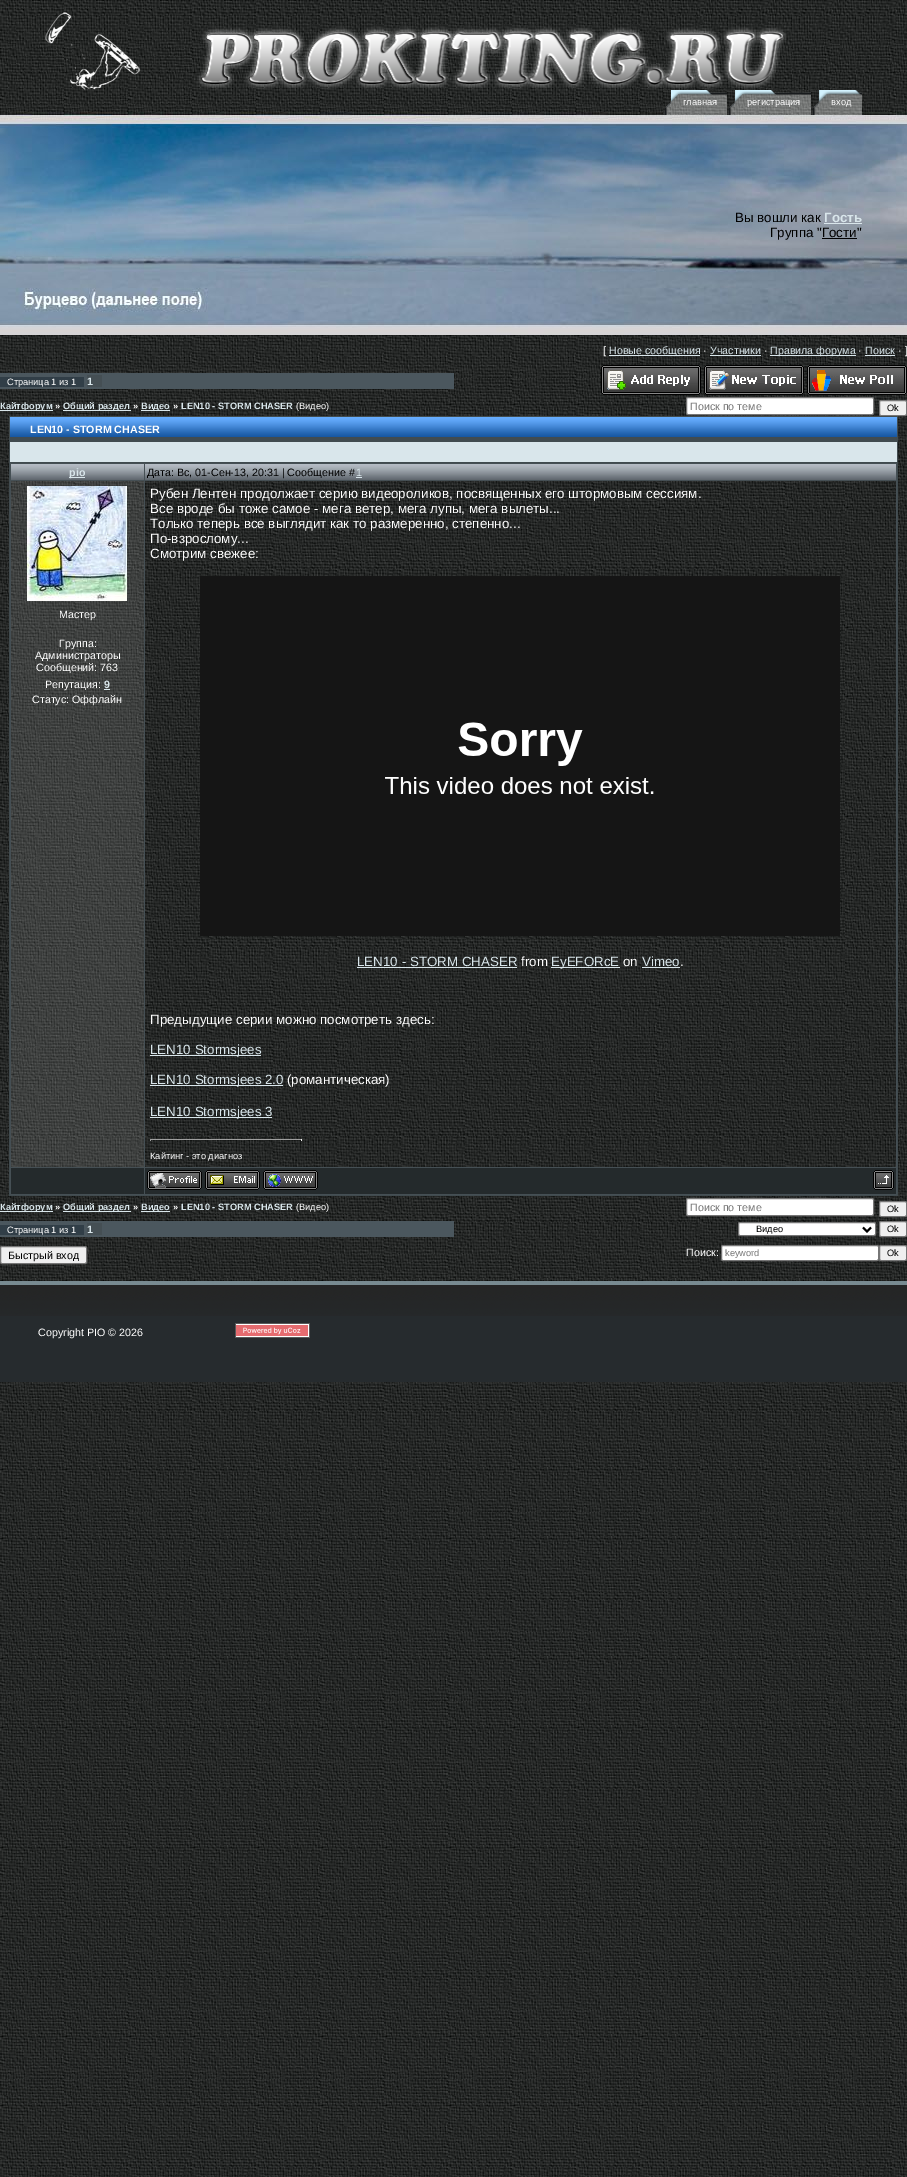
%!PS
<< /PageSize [907 2177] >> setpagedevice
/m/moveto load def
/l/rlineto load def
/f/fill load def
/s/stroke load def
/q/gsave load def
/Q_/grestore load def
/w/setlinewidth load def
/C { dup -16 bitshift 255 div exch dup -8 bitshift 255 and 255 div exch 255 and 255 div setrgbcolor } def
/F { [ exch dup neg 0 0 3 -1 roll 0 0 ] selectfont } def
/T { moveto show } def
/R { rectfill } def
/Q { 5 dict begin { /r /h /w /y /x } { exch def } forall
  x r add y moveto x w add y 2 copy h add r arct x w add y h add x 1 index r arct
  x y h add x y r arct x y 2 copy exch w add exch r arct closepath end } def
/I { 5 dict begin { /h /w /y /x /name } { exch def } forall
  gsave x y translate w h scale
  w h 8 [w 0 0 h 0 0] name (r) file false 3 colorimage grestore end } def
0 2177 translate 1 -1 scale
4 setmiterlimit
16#FFFFFF C
0 0 907 2177 R
(1.rgb) 0 335 907 1842 I
(2.rgb) 0 0 907 335 I
(3.rgb) 45 12 742 78 I
(4.rgb) 663 90 64 25 I
/LiberationSans-Regular 9.25 F
(главная) 683 105 T
(5.rgb) 727 90 84 25 I
(регистрация) 747 105 T
(6.rgb) 811 90 51 25 I
(вход) 831 105 T
/LiberationSans-Regular 13.35 F
16#000000 C
(Вы вошли как) 735 222 T
/LiberationSans-Bold 13.35 F
16#D9E6EB C
(Гость) 824 222 T
824 223 38 1 R
/LiberationSans-Regular 13.35 F
16#000000 C
(Группа "Гости") 770 237 T
822 238 35 1 R
/LiberationSans-Regular 10.7 F
16#FFFFFF C
([) 603 354 T
16#D9E6EB C
609 355 91 1 R
(Новые сообщения) 609 354 T
16#FFFFFF C
(·) 703 354 T
16#D9E6EB C
(Участники) 710 354 T
710 355 51 1 R
16#FFFFFF C
(·) 764 354 T
16#D9E6EB C
770 355 86 1 R
(Правила форума) 770 354 T
16#FFFFFF C
(·) 858 354 T
16#D9E6EB C
(Поиск) 865 354 T
865 355 30 1 R
16#FFFFFF C
(· ]) 898 354 T
16#4B575E C
0 373 454 16 R
16#313E47 C
0 377 84 10 R
/LiberationSans-Regular 9.25 F
16#FFFFFF C
(Страница 1 из 1) 7 385 T
16#454F54 C
87 375 15 12 R
/LiberationSans-Bold 10.7 F
16#D9E6EB C
(1) 87 385 T
(7.rgb) 601 365 100 30 I
(8.rgb) 704 365 100 30 I
(9.rgb) 807 365 100 30 I
0 410 53 1 R
/LiberationSans-Bold 9.25 F
(Кайтфорум) 0 409 T
16#FFFFFF C
(») 55 409 T
16#D9E6EB C
63 410 68 1 R
(Общий раздел) 63 409 T
16#FFFFFF C
(») 133 409 T
16#D9E6EB C
141 410 29 1 R
(Видео) 141 409 T
16#FFFFFF C
(») 173 409 T
16#D9E6EB C
(LEN10 - STORM CHASER) 181 409 T
/LiberationSans-Regular 9.25 F
16#FFFFFF C
(\(Видео\)) 296 409 T
686.5 397.5 187 17 1.5 Q q f Q_
16#767676 C
s
/LiberationSans-Regular 10.7 F
16#757575 C
(Поиск по теме) 690 410 T
16#EFEFEF C
879.5 400.5 27 15 1.5 Q q f Q_
16#767676 C
s
/LiberationSans-Regular 9.25 F
16#000000 C
(Ok) 887 411 T
16#414B4F C
9 416 889 780 R
(10.rgb) 10 417 887 20 I
/LiberationSans-Bold 10.7 F
16#FFFFFF C
(LEN10 - STORM CHASER) 30 433 T
16#D9E6EB C
10 442 887 20 R
16#454F54 C
10 463 887 732 R
(11.rgb) 11 464 133 16 I
16#D9E6EB C
69 477 16 1 R
(pio) 69 476 T
(12.rgb) 145 464 751 16 I
/LiberationSans-Regular 10.7 F
16#000000 C
(Дата: Вс, 01-Сен-13, 20:31 | Сообщение #) 147 476 T
16#D9E6EB C
(1) 356 476 T
356 477 6 1 R
(13.rgb) 11 481 133 686 I
(14.rgb) 27 486 100 115 I
16#FFFFFF C
(Мастер) 59 618 T
(Группа:) 59 647 T
(Администраторы) 35 659 T
(Сообщений: 763) 36 671 T
(Репутация:) 45 688 T
/LiberationSans-Bold 10.7 F
16#D9E6EB C
(9) 104 688 T
104 689 6 1 R
/LiberationSans-Regular 10.7 F
16#FFFFFF C
(Статус: Оффлайн) 32 703 T
(15.rgb) 145 481 751 686 I
/LiberationSans-Regular 13.35 F
(Рубен Лентен продолжает серию видеороликов, посвященных его штормовым сессиям.) 150 498 T
(Все вроде бы тоже самое - мега ветер, мега лупы, мега вылеты...) 150 513 T
(Только теперь все выглядит как то размеренно, степенно...) 150 528 T
(По-взрослому...) 150 543 T
(Смотрим свежее:) 150 558 T
(16.rgb) 200 576 640 360 I
16#D9E6EB C
(LEN10 - STORM CHASER) 357 966 T
357 967 160 1 R
16#FFFFFF C
(from) 521 966 T
16#D9E6EB C
551 967 69 1 R
(EyEFORcE) 551 966 T
16#FFFFFF C
(on) 623 966 T
16#D9E6EB C
(Vimeo) 642 966 T
642 967 38 1 R
16#FFFFFF C
(.) 680 966 T
(Предыдущие серии можно посмотреть здесь:) 150 1024 T
16#D9E6EB C
150 1055 111 1 R
(LEN10 Stormsjees) 150 1054 T
150 1085 133 1 R
(LEN10 Stormsjees 2.0) 150 1084 T
16#FFFFFF C
(\(романтическая\)) 287 1084 T
16#D9E6EB C
150 1117 122 1 R
(LEN10 Stormsjees 3) 150 1116 T
16#9F9F9F C
150 1139 152 1 R
16#EEEEEE C
301 1139 1 2 R
16#9F9F9F C
150 1139 1 2 R
/LiberationSans-Regular 9.25 F
16#FFFFFF C
(Кайтинг - это диагноз) 150 1159 T
16#242A2C C
11 1168 133 26 R
145 1168 751 26 R
(17.rgb) 147 1170 55 20 I
(18.rgb) 205 1170 55 20 I
(19.rgb) 263 1170 55 20 I
(20.rgb) 873 1170 21 20 I
16#D9E6EB C
0 1211 53 1 R
/LiberationSans-Bold 9.25 F
(Кайтфорум) 0 1210 T
16#FFFFFF C
(») 55 1210 T
16#D9E6EB C
63 1211 68 1 R
(Общий раздел) 63 1210 T
16#FFFFFF C
(») 133 1210 T
16#D9E6EB C
141 1211 29 1 R
(Видео) 141 1210 T
16#FFFFFF C
(») 173 1210 T
16#D9E6EB C
(LEN10 - STORM CHASER) 181 1210 T
/LiberationSans-Regular 9.25 F
16#FFFFFF C
(\(Видео\)) 296 1210 T
686.5 1198.5 187 17 1.5 Q q f Q_
16#767676 C
s
/LiberationSans-Regular 10.7 F
16#757575 C
(Поиск по теме) 690 1211 T
16#EFEFEF C
879.5 1201.5 27 15 1.5 Q q f Q_
16#767676 C
s
/LiberationSans-Regular 9.25 F
16#000000 C
(Ok) 887 1212 T
16#4B575E C
0 1221 454 16 R
16#313E47 C
0 1225 84 10 R
16#FFFFFF C
(Страница 1 из 1) 7 1233 T
16#454F54 C
87 1223 15 12 R
/LiberationSans-Bold 10.7 F
16#D9E6EB C
(1) 87 1233 T
16#FFFFFF C
738.5 1222.5 137 13 1.5 Q q f Q_
16#767676 C
s
16#000000 C
2 w
863 1227.5 m 4 4 l 4 -4 l s
/LiberationSans-Regular 9.25 F
(Видео) 756 1232 T
16#EFEFEF C
879.5 1221.5 27 15 1.5 Q q f Q_
16#767676 C
1 w
s
16#000000 C
(Ok) 887 1232 T
16#EFEFEF C
.5 1246.5 86 17 1.5 Q q f Q_
16#767676 C
s
/LiberationSans-Regular 10.7 F
16#000000 C
(Быстрый вход) 8 1259 T
16#FFFFFF C
(Поиск:) 686 1256 T
721.5 1245.5 157 15 1.5 Q q f Q_
16#767676 C
s
/LiberationSans-Regular 9.25 F
16#757575 C
(keyword) 725 1256 T
16#EFEFEF C
879.5 1245.5 27 15 1.5 Q q f Q_
16#767676 C
s
16#000000 C
(Ok) 887 1256 T
16#262B2E C
0 1316 907 66 R
(21.rgb) 0 1281 907 35 I
/LiberationSans-Regular 10.7 F
16#FFFFFF C
(Copyright PIO © 2026) 38 1336 T
(22.rgb) 235 1323 75 15 I
showpage
